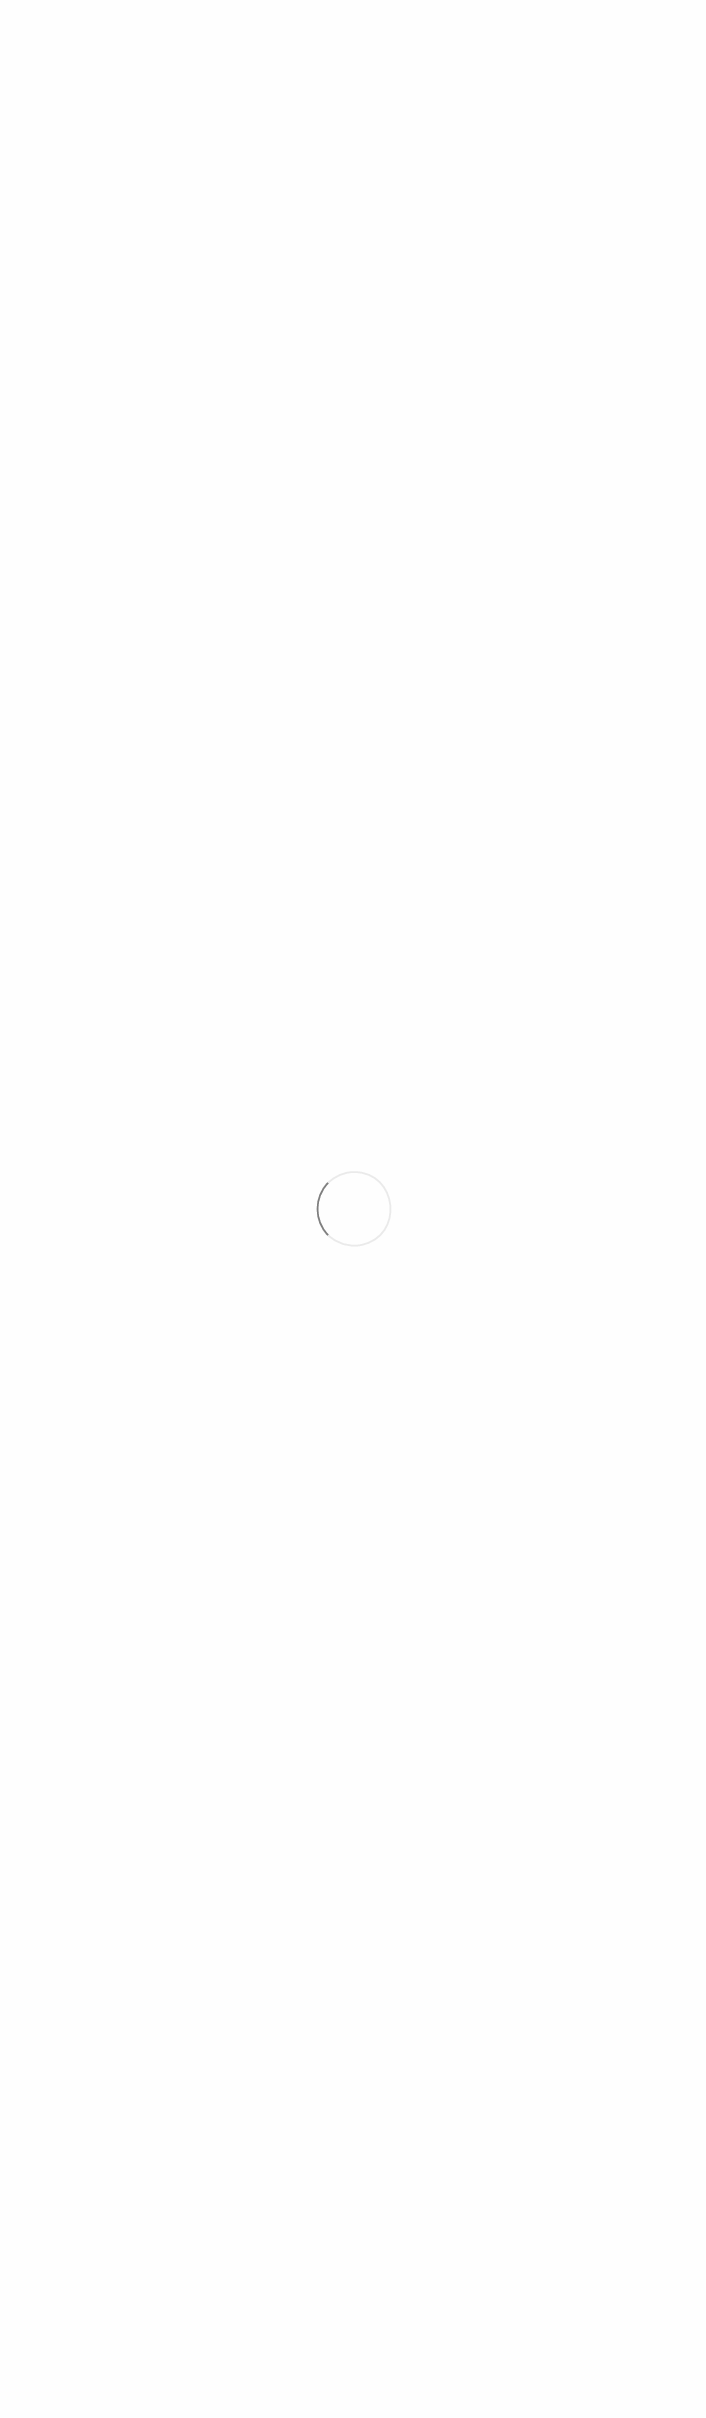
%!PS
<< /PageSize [706 2418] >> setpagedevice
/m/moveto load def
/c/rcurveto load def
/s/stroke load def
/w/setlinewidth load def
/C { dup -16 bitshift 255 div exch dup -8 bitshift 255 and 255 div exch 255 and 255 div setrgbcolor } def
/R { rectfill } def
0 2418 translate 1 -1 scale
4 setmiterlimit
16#FEFEFE C
0 0 706 2418 R
16#EAEAEA C
1.5 w
328 1183 m 7 -7 16.5 -11 26 -11 c 44 0 50.5 64.5 7 73 c -11.5 2.5 -24.5 -1.5 -33 -10 c s
16#7F7F7F C
328 1235 m -14 -14 -14 -38 0 -52 c s
showpage
